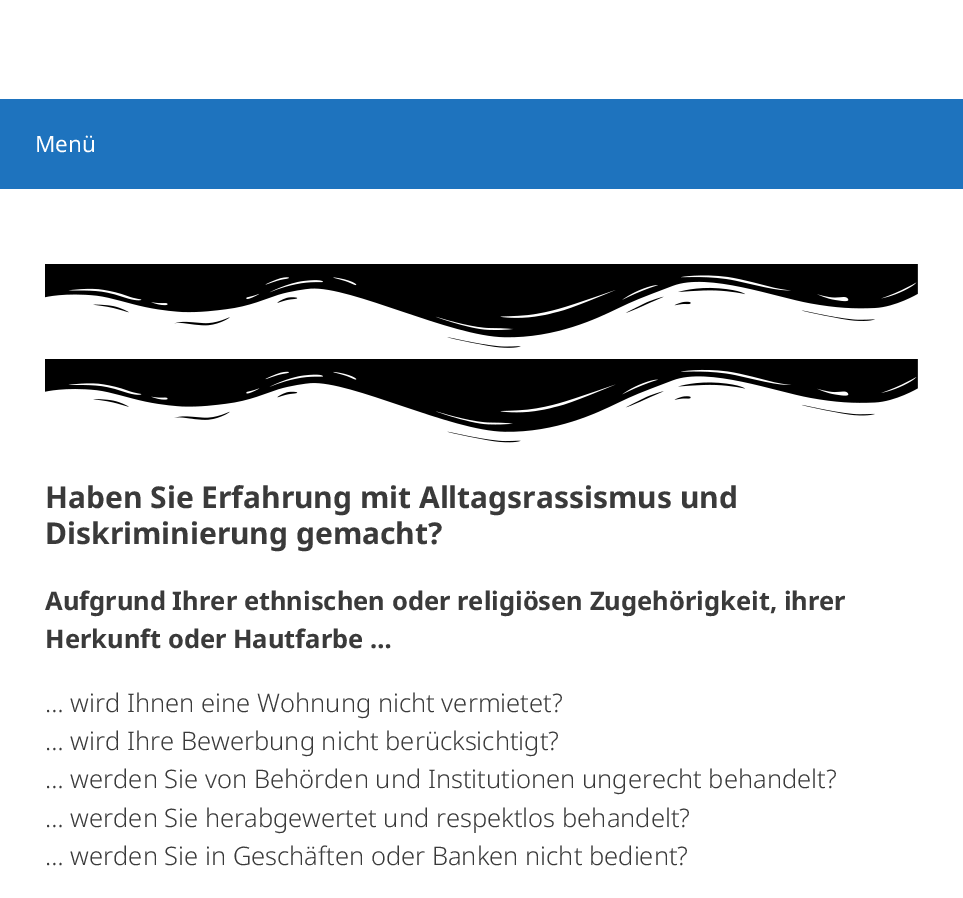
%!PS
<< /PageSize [963 898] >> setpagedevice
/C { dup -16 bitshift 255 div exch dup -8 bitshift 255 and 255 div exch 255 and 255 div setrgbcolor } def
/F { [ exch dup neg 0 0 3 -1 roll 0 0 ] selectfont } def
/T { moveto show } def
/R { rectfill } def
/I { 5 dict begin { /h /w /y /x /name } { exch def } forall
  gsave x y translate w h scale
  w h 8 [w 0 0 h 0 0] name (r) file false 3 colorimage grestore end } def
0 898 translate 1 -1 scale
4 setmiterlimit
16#FFFFFF C
0 0 963 898 R
16#1E73BE C
0 99 963 90 R
/NotoSans-Regular 22.5 F
16#FFFFFF C
(Menü) 35 152 T
(1.rgb) 45 264 873 84 I
(2.rgb) 45 359 873 84 I
/NotoSans-Bold 30 F
16#3A3A3A C
(Haben Sie Erfahrung mit Alltagsrassismus und) 45 508 T
(Diskriminierung gemacht?) 45 544 T
/NotoSans-Bold 25.5 F
(Aufgrund Ihrer ethnischen oder religiösen Zugehörigkeit, ihrer) 45 610 T
(Herkunft oder Hautfarbe …) 45 648 T
/NotoSans-Light 25.5 F
(… wird Ihnen eine Wohnung nicht vermietet?) 45 712 T
(… wird Ihre Bewerbung nicht berücksichtigt?) 45 750 T
(… werden Sie von Behörden und Institutionen ungerecht behandelt?) 45 788 T
(… werden Sie herabgewertet und respektlos behandelt?) 45 827 T
(… werden Sie in Geschäften oder Banken nicht bedient?) 45 865 T
showpage
